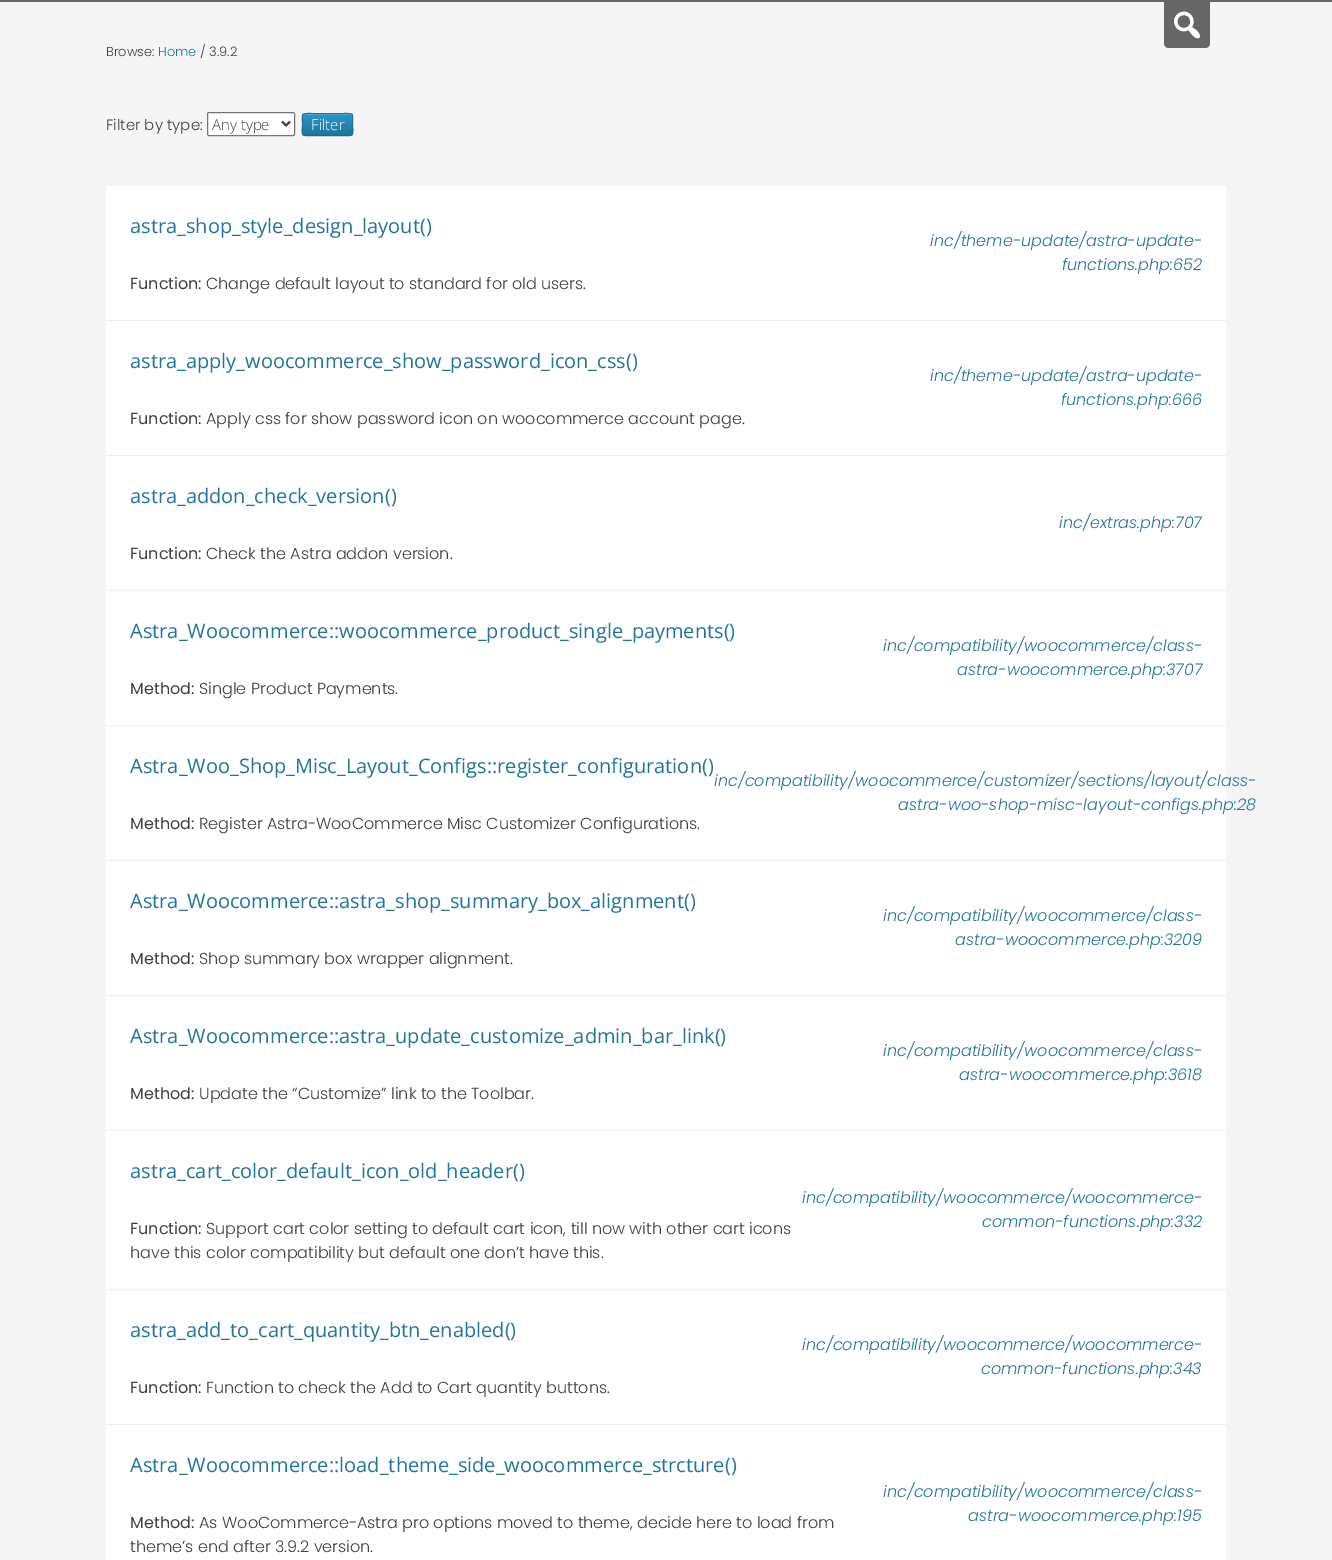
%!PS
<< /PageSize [1332 1560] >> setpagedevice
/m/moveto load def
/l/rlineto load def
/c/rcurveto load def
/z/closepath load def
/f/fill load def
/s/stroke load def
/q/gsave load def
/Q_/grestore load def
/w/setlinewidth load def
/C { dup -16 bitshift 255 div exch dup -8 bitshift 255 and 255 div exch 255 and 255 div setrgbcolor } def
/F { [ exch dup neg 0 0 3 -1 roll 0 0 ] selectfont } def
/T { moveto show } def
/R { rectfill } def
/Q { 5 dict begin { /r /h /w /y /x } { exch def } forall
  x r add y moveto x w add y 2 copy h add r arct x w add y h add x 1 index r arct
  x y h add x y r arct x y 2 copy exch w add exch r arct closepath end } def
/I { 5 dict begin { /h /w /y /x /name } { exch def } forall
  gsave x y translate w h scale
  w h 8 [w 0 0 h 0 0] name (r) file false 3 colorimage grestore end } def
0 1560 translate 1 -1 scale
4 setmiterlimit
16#F5F5F5 C
0 0 1332 1560 R
16#666666 C
0 0 1332 2 R
1164 2 m 46 0 l 0 41 l 0 3 -2 5 -5 5 c -36 0 l -3 0 -5 -2 -5 -5 c z f
(1.rgb) 1174 11 26 28 I
/Poppins-Light 13 F
16#404040 C
(Browse:) 106 56 T
16#21759B C
(Home) 158 56 T
16#404040 C
(/ 3.9.2) 200 56 T
/Poppins-Light 15 F
(Filter by type:) 106 130 T
16#FFFFFF C
207.5 112.5 87 23 1.5 Q q f Q_
16#767676 C
s
16#404040 C
2 w
282 121.5 m 4 4 l 4 -4 l s
/OpenSans-Light 15 F
(Any type) 212 130 T
q
302 113 51 23 3 Q clip newpath
q 302 114 m 51 0 l 0 21 l -51 0 l z clip newpath
<< /ShadingType 2 /ColorSpace /DeviceRGB /Coords [328 114 328 135] /Extend [true true] /Function << /FunctionType 2 /Domain [0 1] /C0 [.165 .584 .773] /C1 [.129 .459 .608] /N 1 >> >> shfill Q_
Q_
16#51AED5 C
305 115 m 45 0 l 1 0 2 1 2 2 c 0 -5 -6 -3 -10 -3 c -30 0 l -3 0 -9 -2 -9 3 c 0 -1 1 -2 2 -2 c z f
16#1E6A8D C
1 w
352 135 m -2 .5 l -45 0 l -2 -.5 l s
16#21759B C
303 135 m -1.5 -2 -.5 -8.5 -.5 -10.5 c 0 -12 -2 -11 10 -11 c 30 0 l 12 0 10 -1 10 11 c 0 2 1 8.5 -.5 10.5 c s
16#FFFFFF C
(Filter) 311 130 T
106 186 1120 134 R
16#EEEEEE C
106 320 1120 1 R
/OpenSans-Regular 20 F
16#21759B C
(astra_shop_style_design_layout\(\)) 130 233 T
/Poppins-Regular 16 F
16#404040 C
(Function:) 130 289 T
/Poppins-Light 16 F
(Change default layout to standard for old users.) 206 289 T
/Poppins-LightItalic 16 F
16#21759B C
(inc/theme-update/astra-update-) 930 246 T
(functions.php:652) 1062 270 T
16#FFFFFF C
106 321 1120 134 R
16#EEEEEE C
106 455 1120 1 R
/OpenSans-Regular 20 F
16#21759B C
(astra_apply_woocommerce_show_password_icon_css\(\)) 130 368 T
/Poppins-Regular 16 F
16#404040 C
(Function:) 130 424 T
/Poppins-Light 16 F
(Apply css for show password icon on woocommerce account page.) 206 424 T
/Poppins-LightItalic 16 F
16#21759B C
(inc/theme-update/astra-update-) 930 381 T
(functions.php:666) 1061 405 T
16#FFFFFF C
106 456 1120 134 R
16#EEEEEE C
106 590 1120 1 R
/OpenSans-Regular 20 F
16#21759B C
(astra_addon_check_version\(\)) 130 503 T
/Poppins-Regular 16 F
16#404040 C
(Function:) 130 559 T
/Poppins-Light 16 F
(Check the Astra addon version.) 206 559 T
/Poppins-LightItalic 16 F
16#21759B C
(inc/extras.php:707) 1059 528 T
16#FFFFFF C
106 591 1120 134 R
16#EEEEEE C
106 725 1120 1 R
/OpenSans-Regular 20 F
16#21759B C
(Astra_Woocommerce::woocommerce_product_single_payments\(\)) 130 638 T
/Poppins-Regular 16 F
16#404040 C
(Method:) 130 694 T
/Poppins-Light 16 F
(Single Product Payments.) 199 694 T
/Poppins-LightItalic 16 F
16#21759B C
(inc/compatibility/woocommerce/class-) 883 651 T
(astra-woocommerce.php:3707) 957 675 T
16#FFFFFF C
106 726 1120 134 R
16#EEEEEE C
106 860 1120 1 R
/OpenSans-Regular 20 F
16#21759B C
(Astra_Woo_Shop_Misc_Layout_Configs::register_configuration\(\)) 130 773 T
/Poppins-Regular 16 F
16#404040 C
(Method:) 130 829 T
/Poppins-Light 16 F
(Register Astra-WooCommerce Misc Customizer Configurations.) 199 829 T
/Poppins-LightItalic 16 F
16#21759B C
(inc/compatibility/woocommerce/customizer/sections/layout/class-) 714 786 T
(astra-woo-shop-misc-layout-configs.php:28) 898 810 T
16#FFFFFF C
106 861 1120 134 R
16#EEEEEE C
106 995 1120 1 R
/OpenSans-Regular 20 F
16#21759B C
(Astra_Woocommerce::astra_shop_summary_box_alignment\(\)) 130 908 T
/Poppins-Regular 16 F
16#404040 C
(Method:) 130 964 T
/Poppins-Light 16 F
(Shop summary box wrapper alignment.) 199 964 T
/Poppins-LightItalic 16 F
16#21759B C
(inc/compatibility/woocommerce/class-) 883 921 T
(astra-woocommerce.php:3209) 955 945 T
16#FFFFFF C
106 996 1120 134 R
16#EEEEEE C
106 1130 1120 1 R
/OpenSans-Regular 20 F
16#21759B C
(Astra_Woocommerce::astra_update_customize_admin_bar_link\(\)) 130 1043 T
/Poppins-Regular 16 F
16#404040 C
(Method:) 130 1099 T
/Poppins-Light 16 F
(Update the “Customize” link to the Toolbar.) 199 1099 T
/Poppins-LightItalic 16 F
16#21759B C
(inc/compatibility/woocommerce/class-) 883 1056 T
(astra-woocommerce.php:3618) 959 1080 T
16#FFFFFF C
106 1131 1120 158 R
16#EEEEEE C
106 1289 1120 1 R
/OpenSans-Regular 20 F
16#21759B C
(astra_cart_color_default_icon_old_header\(\)) 130 1178 T
/Poppins-Regular 16 F
16#404040 C
(Function:) 130 1234 T
/Poppins-Light 16 F
(Support cart color setting to default cart icon, till now with other cart icons) 206 1234 T
(have this color compatibility but default one don’t have this.) 130 1258 T
/Poppins-LightItalic 16 F
16#21759B C
(inc/compatibility/woocommerce/woocommerce-) 802 1203 T
(common-functions.php:332) 982 1227 T
16#FFFFFF C
106 1290 1120 134 R
16#EEEEEE C
106 1424 1120 1 R
/OpenSans-Regular 20 F
16#21759B C
(astra_add_to_cart_quantity_btn_enabled\(\)) 130 1337 T
/Poppins-Regular 16 F
16#404040 C
(Function:) 130 1393 T
/Poppins-Light 16 F
(Function to check the Add to Cart quantity buttons.) 206 1393 T
/Poppins-LightItalic 16 F
16#21759B C
(inc/compatibility/woocommerce/woocommerce-) 802 1350 T
(common-functions.php:343) 981 1374 T
16#FFFFFF C
106 1425 1120 135 R
/OpenSans-Regular 20 F
16#21759B C
(Astra_Woocommerce::load_theme_side_woocommerce_strcture\(\)) 130 1472 T
/Poppins-Regular 16 F
16#404040 C
(Method:) 130 1528 T
/Poppins-Light 16 F
(As WooCommerce-Astra pro options moved to theme, decide here to load from) 199 1528 T
(theme’s end after 3.9.2 version.) 130 1552 T
/Poppins-LightItalic 16 F
16#21759B C
(inc/compatibility/woocommerce/class-) 883 1497 T
(astra-woocommerce.php:195) 968 1521 T
showpage
